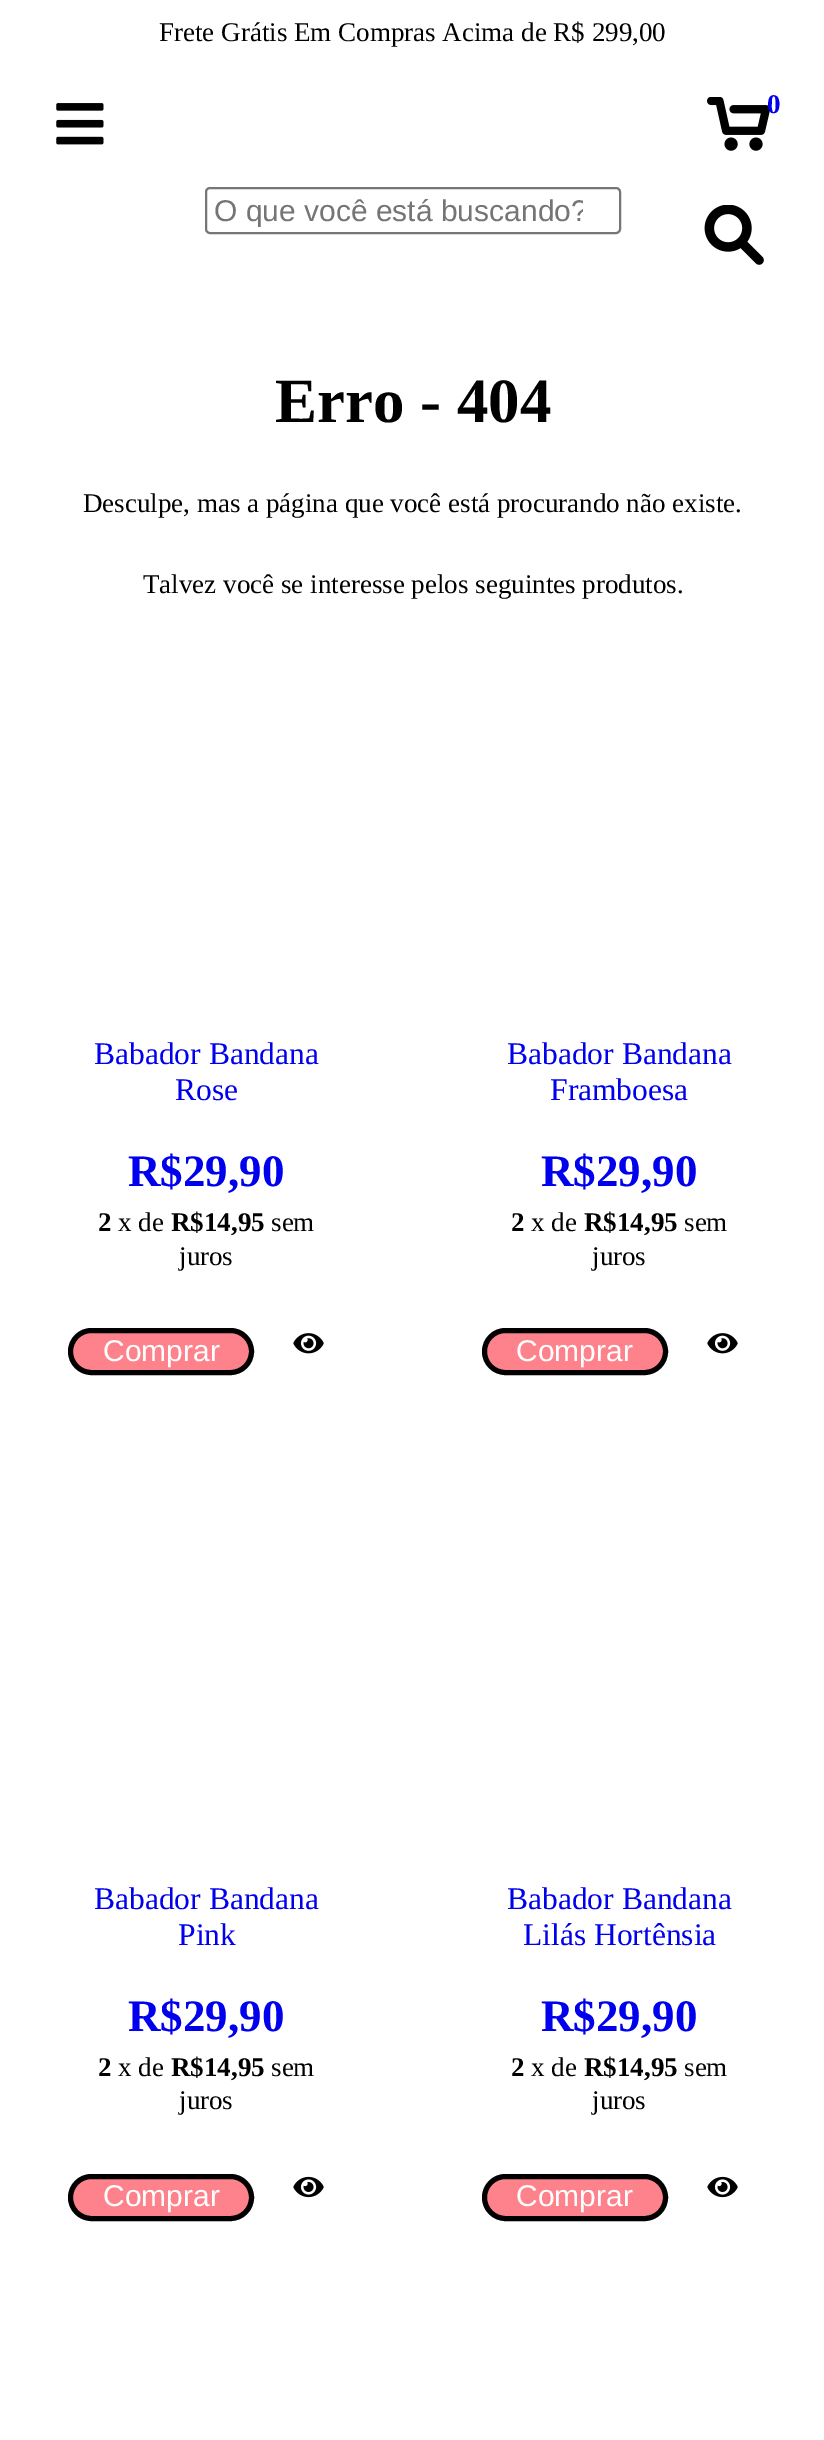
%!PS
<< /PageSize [824 2440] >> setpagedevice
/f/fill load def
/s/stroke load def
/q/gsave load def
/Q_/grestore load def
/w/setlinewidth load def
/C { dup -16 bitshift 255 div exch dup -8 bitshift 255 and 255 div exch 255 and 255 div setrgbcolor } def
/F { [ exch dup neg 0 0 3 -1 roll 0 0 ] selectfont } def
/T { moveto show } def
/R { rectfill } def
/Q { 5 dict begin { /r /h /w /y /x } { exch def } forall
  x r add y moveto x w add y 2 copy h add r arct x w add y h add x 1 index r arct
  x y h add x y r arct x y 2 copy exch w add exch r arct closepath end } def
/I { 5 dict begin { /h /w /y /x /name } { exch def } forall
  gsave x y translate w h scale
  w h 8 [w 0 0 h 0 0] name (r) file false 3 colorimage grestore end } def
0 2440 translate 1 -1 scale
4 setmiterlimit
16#FFFFFF C
0 0 824 2440 R
/LiberationSerif-Regular 27 F
16#000000 C
(Frete Grátis Em Compras Acima de R$ 299,00) 159 41 T
(1.rgb) 56 103 48 42 I
(2.rgb) 707 97 64 54 I
/LiberationSerif-Bold 27 F
16#0000EE C
(0) 767 113 T
16#767676 C
2 w
206 188 414 45 4 Q s
q
214 194 369 33 rectclip
/LiberationSans-Regular 30 F
16#757575 C
(O que você está buscando?) 214 221 T
Q_
(3.rgb) 704 205 60 60 I
/LiberationSerif-Bold 63 F
16#000000 C
(Erro - 404) 275 422 T
/LiberationSerif-Regular 27 F
(Desculpe, mas a página que você está procurando não existe.) 83 512 T
(Talvez você se interesse pelos seguintes produtos.) 143 593 T
/LiberationSerif-Regular 31.5 F
16#0000EE C
(Babador Bandana) 94 1064 T
(Rose) 175 1100 T
/LiberationSerif-Bold 45 F
(R$29,90) 128 1186 T
/LiberationSerif-Bold 27 F
16#000000 C
(2) 98 1231 T
/LiberationSerif-Regular 27 F
(x de) 118 1231 T
/LiberationSerif-Bold 27 F
(R$14,95) 171 1231 T
/LiberationSerif-Regular 27 F
(sem) 271 1231 T
(juros) 179 1265 T
16#FE828C C
70.5 1330.5 181 42 21 Q q f Q_
16#000000 C
5 w
s
/LiberationSans-Regular 30 F
16#FFFFFF C
(Comprar) 103 1361 T
(4.rgb) 293 1333 31 21 I
/LiberationSerif-Regular 31.5 F
16#0000EE C
(Babador Bandana) 507 1064 T
(Framboesa) 550 1100 T
/LiberationSerif-Bold 45 F
(R$29,90) 541 1186 T
/LiberationSerif-Bold 27 F
16#000000 C
(2) 511 1231 T
/LiberationSerif-Regular 27 F
(x de) 531 1231 T
/LiberationSerif-Bold 27 F
(R$14,95) 584 1231 T
/LiberationSerif-Regular 27 F
(sem) 684 1231 T
(juros) 592 1265 T
16#FE828C C
484.5 1330.5 181 42 21 Q q f Q_
16#000000 C
s
/LiberationSans-Regular 30 F
16#FFFFFF C
(Comprar) 516 1361 T
(4.rgb) 707 1333 31 21 I
/LiberationSerif-Regular 31.5 F
16#0000EE C
(Babador Bandana) 94 1909 T
(Pink) 178 1945 T
/LiberationSerif-Bold 45 F
(R$29,90) 128 2031 T
/LiberationSerif-Bold 27 F
16#000000 C
(2) 98 2076 T
/LiberationSerif-Regular 27 F
(x de) 118 2076 T
/LiberationSerif-Bold 27 F
(R$14,95) 171 2076 T
/LiberationSerif-Regular 27 F
(sem) 271 2076 T
(juros) 179 2109 T
16#FE828C C
70.5 2176.5 181 42 21 Q q f Q_
16#000000 C
s
/LiberationSans-Regular 30 F
16#FFFFFF C
(Comprar) 103 2206 T
(5.rgb) 293 2176 31 22 I
/LiberationSerif-Regular 31.5 F
16#0000EE C
(Babador Bandana) 507 1909 T
(Lilás Hortênsia) 523 1945 T
/LiberationSerif-Bold 45 F
(R$29,90) 541 2031 T
/LiberationSerif-Bold 27 F
16#000000 C
(2) 511 2076 T
/LiberationSerif-Regular 27 F
(x de) 531 2076 T
/LiberationSerif-Bold 27 F
(R$14,95) 584 2076 T
/LiberationSerif-Regular 27 F
(sem) 684 2076 T
(juros) 592 2109 T
16#FE828C C
484.5 2176.5 181 42 21 Q q f Q_
16#000000 C
s
/LiberationSans-Regular 30 F
16#FFFFFF C
(Comprar) 516 2206 T
(5.rgb) 707 2176 31 22 I
showpage
